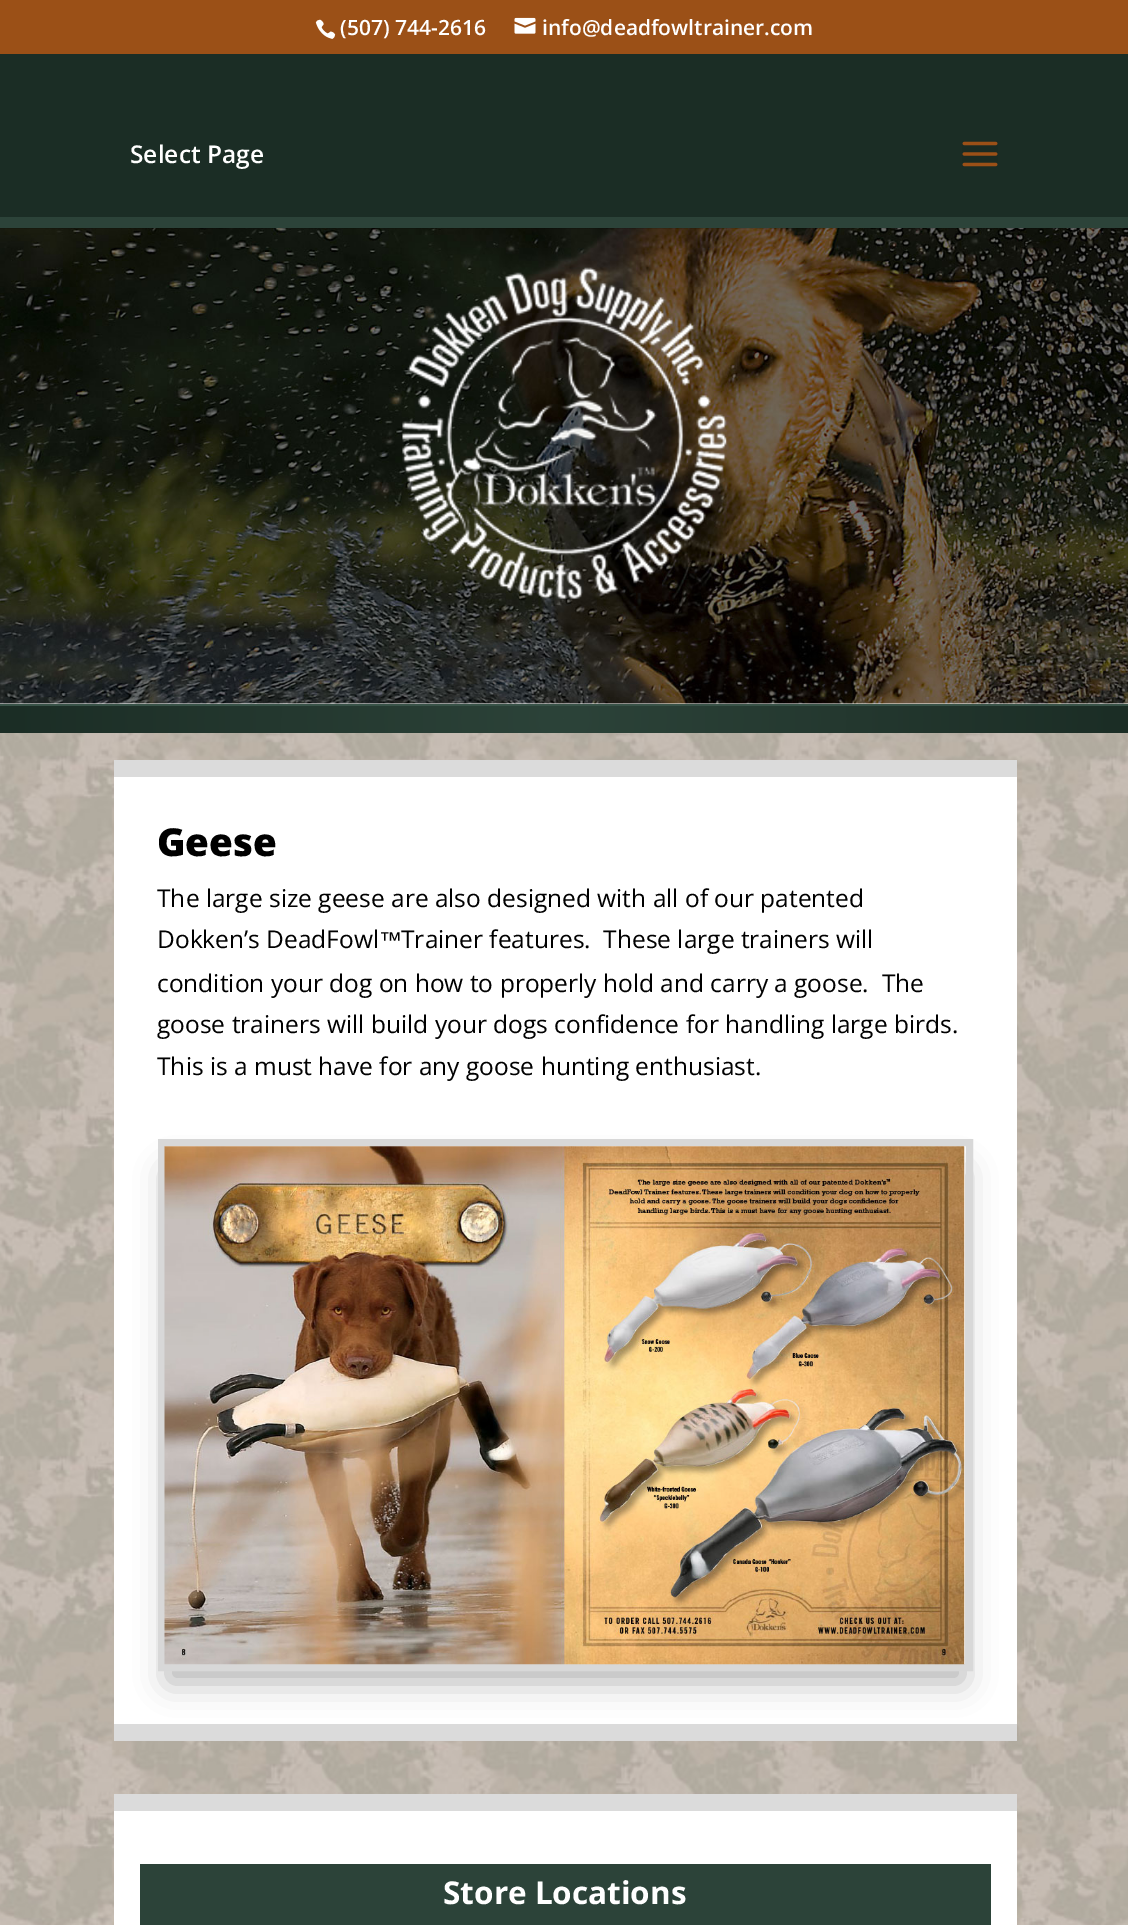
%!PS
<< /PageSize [1128 1925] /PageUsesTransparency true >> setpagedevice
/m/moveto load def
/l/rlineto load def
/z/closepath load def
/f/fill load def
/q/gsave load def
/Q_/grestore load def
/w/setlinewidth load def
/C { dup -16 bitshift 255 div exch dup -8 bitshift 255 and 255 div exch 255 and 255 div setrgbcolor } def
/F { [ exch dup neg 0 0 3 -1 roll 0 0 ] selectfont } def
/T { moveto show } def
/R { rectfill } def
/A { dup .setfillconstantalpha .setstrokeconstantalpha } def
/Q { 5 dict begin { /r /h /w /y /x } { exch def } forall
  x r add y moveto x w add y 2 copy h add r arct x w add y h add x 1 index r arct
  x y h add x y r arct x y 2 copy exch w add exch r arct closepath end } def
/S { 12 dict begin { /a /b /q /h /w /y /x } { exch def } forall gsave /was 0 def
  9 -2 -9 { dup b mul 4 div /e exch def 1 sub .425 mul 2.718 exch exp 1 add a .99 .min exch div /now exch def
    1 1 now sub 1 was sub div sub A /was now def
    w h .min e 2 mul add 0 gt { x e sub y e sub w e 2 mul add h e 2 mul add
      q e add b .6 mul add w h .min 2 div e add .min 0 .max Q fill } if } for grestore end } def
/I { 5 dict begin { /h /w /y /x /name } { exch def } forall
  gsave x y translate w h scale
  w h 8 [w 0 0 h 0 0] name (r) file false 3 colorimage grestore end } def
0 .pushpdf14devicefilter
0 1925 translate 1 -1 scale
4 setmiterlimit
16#FFFFFF C
0 0 1128 1925 R
(1.rgb) 0 733 1128 1192 I
16#9B5017 C
0 0 1128 54 R
(2.rgb) 315 19 21 20 I
/OpenSans-SemiBold 21 F
16#FFFFFF C
(\(507\) 744-2616) 340 35 T
(3.rgb) 514 17 22 17 I
(info@deadfowltrainer.com) 542 35 T
(5.rgb) 0 228 1128 476 I
0.1 A
16#000000 C
0 228 m 0 1 l 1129 0 l 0 -173 l 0 172 l z f
1 A
16#1B2D25 C
0 54 1128 163 R
16#2C4339 C
0 217 1128 11 R
/OpenSans-SemiBold 24.5 F
16#FFFFFF C
(Select Page) 130 163 T
(4.rgb) 962 141 36 26 I
(6.rgb) 402 267 325 332 I
q 0 706 m 1128 0 l 0 27 l -1128 0 l z clip newpath 564 719 translate 565 565 scale
<< /ShadingType 3 /ColorSpace /DeviceRGB /Coords [0 0 0 0 0 1] /Extend [true true] /Function << /FunctionType 2 /Domain [0 1] /C0 [.173 .263 .224] /C1 [.106 .176 .145] /N 1 >> >> shfill Q_
16#395348 C
0 704 1128 2 R
16#FFFFFF C
114 777 903 947 R
16#DBDBDB C
114 760 903 17 R
114 1724 903 17 R
/OpenSans-ExtraBold 38.5 F
16#000000 C
(Geese) 157 856 T
/OpenSans-Regular 24.5 F
(The large size geese are also designed with all of our patented) 157 907 T
(Dokken’s DeadFowl) 157 948 T
/LiberationSans-Regular 23 F
(™) 379 948 T
/OpenSans-Regular 24.5 F
(Trainer features.  These large trainers will) 401 948 T
(condition your dog on how to properly hold and carry a goose.  The) 157 992 T
(goose trainers will build your dogs confidence for handling large birds.) 157 1033 T
(This is a must have for any goose hunting enthusiast.) 157 1075 T
168 1171 795 511 0 16 .3 S
16#D8D8D8 C
7 w
161.5 1142.5 808 525 rectstroke
(7.rgb) 164 1146 801 519 I
16#FFFFFF C
114 1811 903 114 R
16#DBDBDB C
114 1794 903 17 R
16#2C4339 C
140 1864 851 61 R
/OpenSans-Bold 31.5 F
16#FFFFFF C
(Store Locations) 443 1904 T
.poppdf14devicefilter showpage
